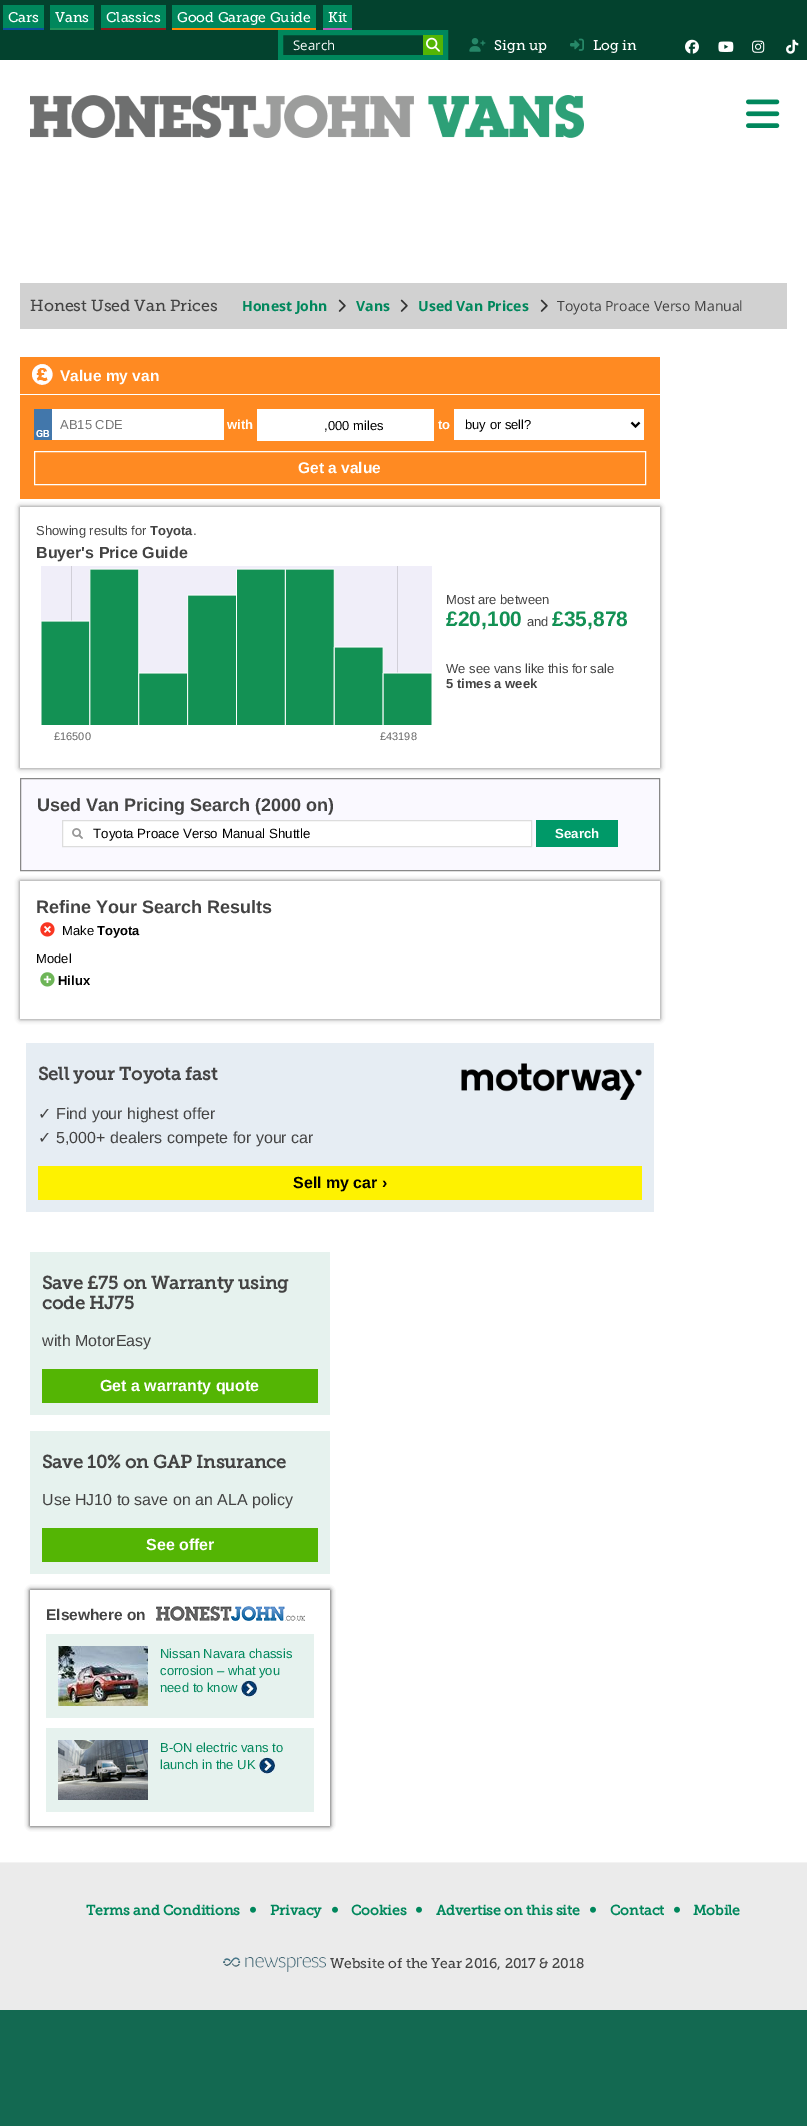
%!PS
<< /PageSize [807 2126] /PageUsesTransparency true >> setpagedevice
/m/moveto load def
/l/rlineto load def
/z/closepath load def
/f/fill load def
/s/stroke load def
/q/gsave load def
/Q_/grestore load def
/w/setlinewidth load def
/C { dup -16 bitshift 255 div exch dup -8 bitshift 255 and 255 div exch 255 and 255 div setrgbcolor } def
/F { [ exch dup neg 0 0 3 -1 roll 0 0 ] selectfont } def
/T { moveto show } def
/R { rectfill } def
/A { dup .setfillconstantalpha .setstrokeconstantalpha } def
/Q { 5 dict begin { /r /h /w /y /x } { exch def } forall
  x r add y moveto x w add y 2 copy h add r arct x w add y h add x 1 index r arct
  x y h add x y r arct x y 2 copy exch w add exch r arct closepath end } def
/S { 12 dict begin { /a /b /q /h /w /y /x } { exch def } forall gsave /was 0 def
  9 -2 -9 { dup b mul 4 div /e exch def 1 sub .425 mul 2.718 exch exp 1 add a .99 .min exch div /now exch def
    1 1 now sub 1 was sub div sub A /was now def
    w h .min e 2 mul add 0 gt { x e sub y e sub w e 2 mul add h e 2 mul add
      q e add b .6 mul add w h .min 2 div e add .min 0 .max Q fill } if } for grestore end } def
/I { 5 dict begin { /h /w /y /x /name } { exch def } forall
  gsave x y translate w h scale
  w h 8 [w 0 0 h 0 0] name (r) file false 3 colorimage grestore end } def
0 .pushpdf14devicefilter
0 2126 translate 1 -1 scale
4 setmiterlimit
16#136951 C
0 0 807 2126 R
16#03422E C
0 0 807 60 R
16#00875C C
3 5 41 23 R
16#0B509E C
3 28 41 2 R
/MuseoSlab-Regular 14 F
16#FFFFFF C
(Cars) 8 22 T
16#00875C C
50 5 44 23 R
16#20935C C
50 28 44 2 R
16#FFFFFF C
(Vans) 55 22 T
16#00875C C
101 5 65 23 R
16#8F1B1B C
101 28 65 2 R
16#FFFFFF C
(Classics) 106 22 T
16#00875C C
172 5 144 23 R
16#FF8500 C
172 28 144 2 R
16#FFFFFF C
(Good Garage Guide) 177 22 T
16#00875C C
323 5 29 23 R
16#B45EB8 C
323 28 29 2 R
16#FFFFFF C
(Kit) 328 22 T
16#00875C C
5 w
280.5 32.5 m 165 0 l 0 25 l -165 0 l z s
/OpenSans-Regular 13.3 F
16#FFFFFF C
(Search) 293 50 T
16#54B504 C
423 35 20 20 R
(1.rgb) 426 37 14 15 I
(2.rgb) 469 38 17 14 I
/MuseoSlab-Regular 14 F
16#FFFFFF C
(Sign up) 494 50 T
(3.rgb) 570 38 14 13 I
(Log in) 593 50 T
(4.rgb) 685 39 14 15 I
(5.rgb) 718 41 16 11 I
(6.rgb) 752 40 13 13 I
(7.rgb) 786 39 13 15 I
0 60 807 1802 R
(8.rgb) 30 95 554 43 I
(9.rgb) 746 99 34 29 I
16#D1D1D1 C
20 283 767 46 R
/MuseoSlab-Regular 16 F
16#434343 C
(Honest Used Van Prices) 30 311 T
/OpenSans-Bold 14 F
16#00875C C
(Honest John) 242 311 T
(10.rgb) 338 299 8 13 I
(Vans) 356 311 T
(10.rgb) 400 299 8 13 I
(Used Van Prices) 418 311 T
(10.rgb) 540 299 8 13 I
/OpenSans-Regular 14 F
16#434343 C
(Toyota Proace Verso Manual) 557 311 T
16#FF8A22 C
20 357 640 142 R
(11.rgb) 32 364 21 21 I
/LiberationSans-Bold 15.5 F
16#FFFFFF C
(Value my van) 60 381 T
20 394 640 1 R
52 409 172 31 R
(12.rgb) 34 409 18 31 I
/LiberationSans-Regular 13 F
16#757575 C
(AB15 CDE) 60 429 T
/LiberationSans-Bold 13 F
16#FFFFFF C
(with) 227 429 T
257 409 177 32 R
/LiberationSans-Regular 13 F
16#000000 C
(,000 miles) 324 430 T
/LiberationSans-Bold 13 F
16#FFFFFF C
(to) 438 429 T
454 409 190 31 R
16#000000 C
2 w
631.5 422.5 m 4 4 l 4 -4 l s
/LiberationSans-Regular 13 F
(buy or sell?) 465 429 T
16#FFFFFF C
1 w
34.5 451.5 611 33 rectstroke
/LiberationSans-Bold 15.5 F
(Get a value) 298 473 T
q
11 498 m 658 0 l 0 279 l -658 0 l z 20 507 m 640 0 l 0 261 l -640 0 l z eoclip newpath
16#777777 C
20 507 640 261 0 2.5 1 S
Q_
/LiberationSans-Regular 13 F
16#434343 C
(Showing results for) 36 535 T
/LiberationSans-Bold 13 F
(Toyota) 150 535 T
/LiberationSans-Regular 13 F
(.) 193 535 T
/LiberationSans-Bold 16 F
(Buyer's Price Guide) 36 558 T
/LiberationSans-Regular 13 F
(Most are between) 446 604 T
/LiberationSans-Bold 21 F
16#139154 C
(£20,100) 446 626 T
/LiberationSans-Regular 13 F
16#434343 C
(and) 527 626 T
/LiberationSans-Bold 21 F
16#139154 C
(£35,878) 552 626 T
/LiberationSans-Regular 13 F
16#434343 C
(We see vans like this for sale) 446 673 T
/LiberationSans-Bold 13 F
(5 times a week) 446 688 T
(13.rgb) 41 566 391 159 I
/LiberationSans-Regular 11 F
16#666666 C
(£16500) 54 740 T
(£43198) 380 740 T
16#FAF9FF C
20.5 778.5 m 639 0 l 0 92 l -639 0 l z q f Q_
16#888888 C
s
/LiberationSans-Bold 18 F
16#434343 C
(Used Van Pricing Search \(2000 on\)) 37 811 T
16#FFFFFF C
63 821 468 25 R
(14.rgb) 72 828 11 11 I
16#DDDDDD C
62.5 820.5 469 26 rectstroke
/LiberationSans-Regular 13.3 F
16#000000 C
(Toyota Proace Verso Manual Shuttle) 93 838 T
16#009968 C
536 820 82 27 R
/LiberationSans-Bold 13.3 F
16#FFFFFF C
(Search) 555 838 T
q
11 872 m 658 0 l 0 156 l -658 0 l z 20 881 m 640 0 l 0 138 l -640 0 l z eoclip newpath
16#777777 C
20 881 640 138 0 2.5 1 S
Q_
/LiberationSans-Bold 18 F
16#434343 C
(Refine Your Search Results) 36 913 T
(15.rgb) 40 922 15 15 I
/LiberationSans-Regular 13 F
16#000000 C
(Make) 62 935 T
/LiberationSans-Bold 13 F
(Toyota) 97 935 T
/LiberationSans-Regular 13 F
(Model) 36 963 T
(16.rgb) 40 972 15 15 I
/LiberationSans-Bold 13 F
(Hilux) 58 985 T
16#E6EDF3 C
26 1043 628 169 R
/MuseoSlab-Bold 18 F
16#434343 C
(Sell your Toyota fast) 38 1080 T
(17.rgb) 461 1063 181 37 I
/DejaVuSans-Regular 16 F
(✓) 38 1119 T
/LiberationSans-Regular 16 F
(Find your highest offer) 56 1119 T
/DejaVuSans-Regular 16 F
(✓) 38 1143 T
/LiberationSans-Regular 16 F
(5,000+ dealers compete for your car) 56 1143 T
16#FEF200 C
38 1166 604 34 R
/LiberationSans-Bold 16 F
16#000000 C
(Sell my car ›) 293 1188 T
16#E6F2EE C
30 1252 300 163 R
/MuseoSlab-Bold 18 F
16#434343 C
(Save £75 on Warranty using) 42 1289 T
(code HJ75) 42 1309 T
/LiberationSans-Regular 16 F
(with MotorEasy) 42 1346 T
16#54B504 C
42 1369 276 34 R
/LiberationSans-Bold 16 F
16#FFFFFF C
(Get a warranty quote) 100 1391 T
16#E6F2EE C
30 1431 300 143 R
/MuseoSlab-Bold 18 F
16#434343 C
(Save 10% on GAP Insurance) 42 1468 T
/LiberationSans-Regular 16 F
(Use HJ10 to save on an ALA policy) 42 1505 T
16#54B504 C
42 1528 276 34 R
/LiberationSans-Bold 16 F
16#FFFFFF C
(See offer) 146 1550 T
q
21 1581 m 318 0 l 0 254 l -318 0 l z 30 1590 m 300 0 l 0 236 l -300 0 l z eoclip newpath
16#333333 C
30 1590 300 236 0 2.5 1 S
Q_
/LiberationSans-Bold 15.5 F
16#434343 C
(Elsewhere on) 46 1620 T
(18.rgb) 156 1606 149 15 I
16#E6F2EE C
46 1634 268 84 R
(19.rgb) 58 1646 90 60 I
/LiberationSans-Regular 13 F
16#00875C C
(Nissan Navara chassis) 160 1658 T
(corrosion – what you) 160 1675 T
(need to know) 160 1692 T
(20.rgb) 241 1680 16 17 I
16#E6F2EE C
46 1728 268 84 R
(21.rgb) 58 1740 90 60 I
16#00875C C
(B-ON electric vans to) 160 1752 T
(launch in the UK) 160 1769 T
(20.rgb) 259 1757 16 17 I
16#EBEBEB C
0 1863 807 147 R
16#F3F3F3 C
0 1862 807 1 R
/MuseoSlab-Bold 14 F
16#00875C C
(Terms and Conditions) 86 1915 T
(22.rgb) 250 1906 6 7 I
(Privacy) 270 1915 T
(22.rgb) 332 1906 6 7 I
(Cookies) 351 1915 T
(22.rgb) 416 1906 6 7 I
(Advertise on this site) 436 1915 T
(22.rgb) 590 1906 6 7 I
(Contact) 610 1915 T
(22.rgb) 674 1906 6 7 I
(Mobile) 693 1915 T
(23.rgb) 223 1957 103 15 I
/MuseoSlab-Regular 14 F
16#434343 C
(Website of the Year 2016, 2017 & 2018) 330 1968 T
.poppdf14devicefilter showpage
